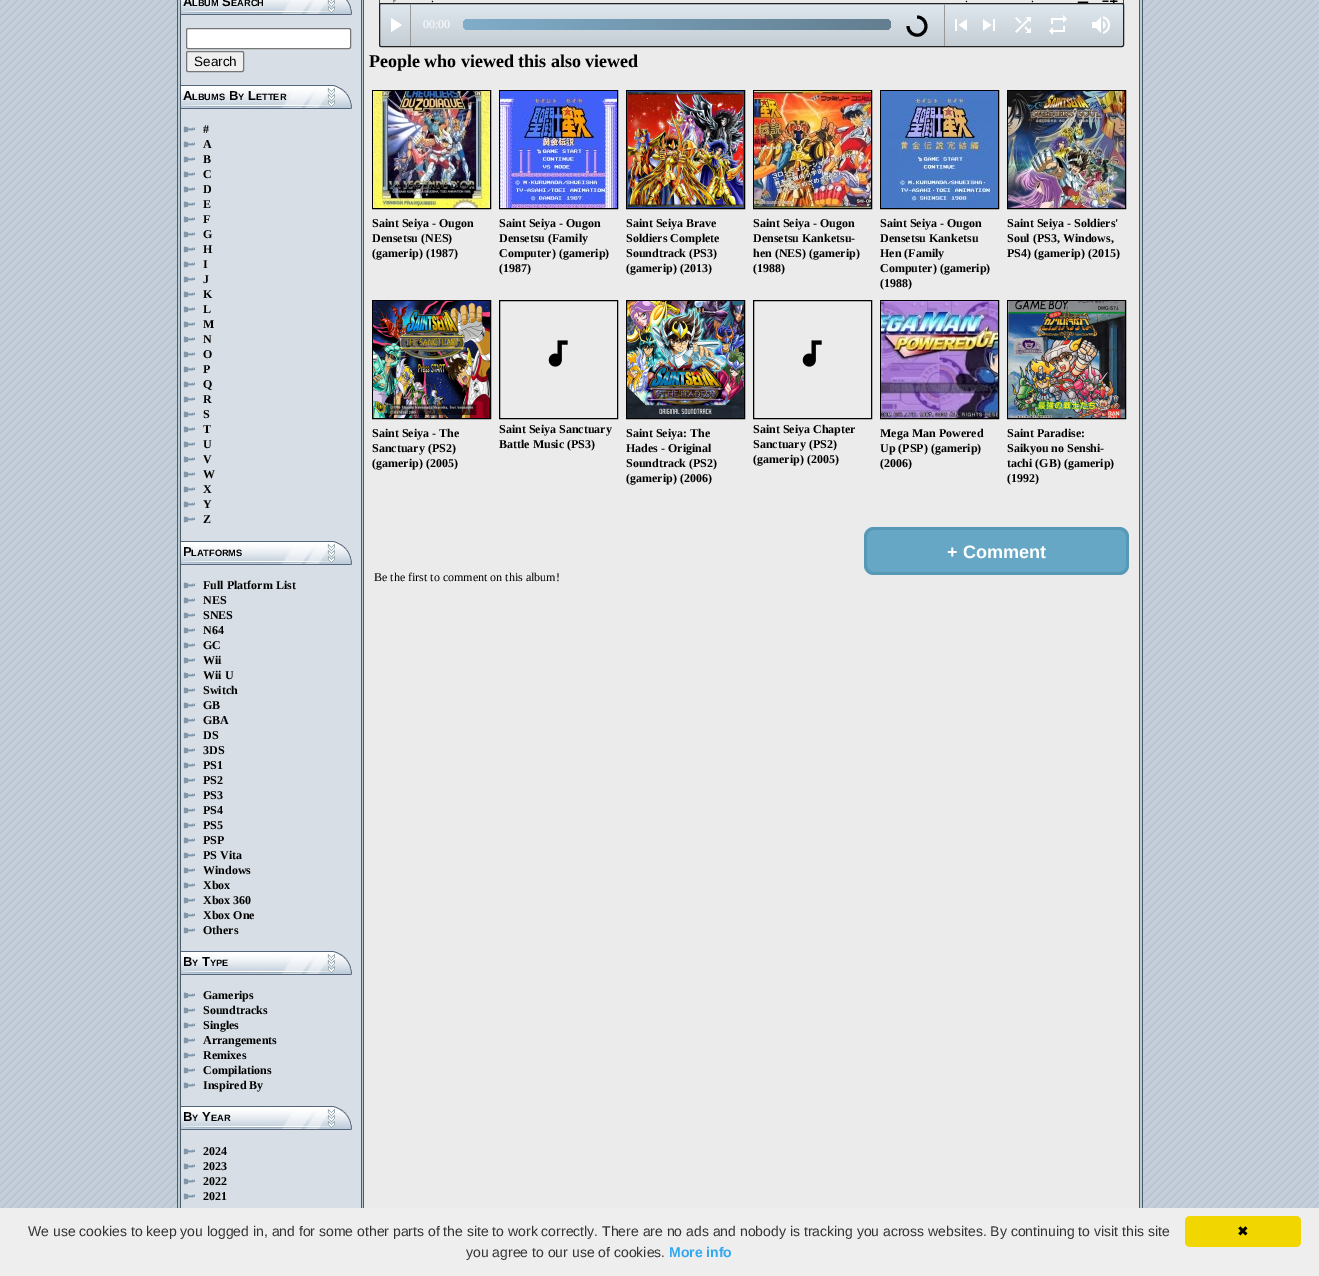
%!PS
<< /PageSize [1319 1276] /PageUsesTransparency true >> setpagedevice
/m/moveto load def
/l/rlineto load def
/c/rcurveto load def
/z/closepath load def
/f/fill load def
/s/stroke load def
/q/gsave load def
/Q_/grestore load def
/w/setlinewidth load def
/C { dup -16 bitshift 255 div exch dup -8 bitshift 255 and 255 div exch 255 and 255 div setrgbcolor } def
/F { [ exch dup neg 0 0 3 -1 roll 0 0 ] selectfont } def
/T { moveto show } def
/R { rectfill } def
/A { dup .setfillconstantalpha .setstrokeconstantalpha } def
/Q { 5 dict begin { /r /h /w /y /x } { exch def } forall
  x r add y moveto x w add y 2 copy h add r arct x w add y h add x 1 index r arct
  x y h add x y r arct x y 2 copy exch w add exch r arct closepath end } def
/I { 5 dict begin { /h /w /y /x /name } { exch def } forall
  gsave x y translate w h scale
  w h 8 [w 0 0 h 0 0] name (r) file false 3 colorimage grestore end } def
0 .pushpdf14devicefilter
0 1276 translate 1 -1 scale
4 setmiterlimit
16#FFFFFF C
0 0 1319 1276 R
(1.rgb) 0 0 1319 1208 I
16#BCCBD2 C
178 0 964 1208 R
16#4B5B6E C
1142 0 1 1208 R
177 0 1 1208 R
16#D7DEE5 C
181 0 180 1208 R
16#4B5B6E C
361 0 1 1208 R
180 0 1 1208 R
(2.rgb) 181 0 171 15 I
/LiberationSans-Bold 13 F
16#000000 C
(A) 183 6 T
/LiberationSans-Bold 9.25 F
(LBUM) 192 6 T
/LiberationSans-Bold 13 F
(S) 222 6 T
/LiberationSans-Bold 9.25 F
(EARCH) 231 6 T
16#FFFFFF C
186.5 28.5 164 20 1.5 Q q f Q_
16#767676 C
s
16#EFEFEF C
186.5 51.5 57 20 1.5 Q q f Q_
16#767676 C
s
/LiberationSans-Regular 13.5 F
16#000000 C
(Search) 194 66 T
(3.rgb) 181 85 171 24 I
/LiberationSans-Bold 13 F
(A) 183 100 T
/LiberationSans-Bold 9.25 F
(LBUMS) 192 100 T
/LiberationSans-Bold 13 F
(B) 229 100 T
/LiberationSans-Bold 9.25 F
(Y) 238 100 T
/LiberationSans-Bold 13 F
(L) 248 100 T
/LiberationSans-Bold 9.25 F
(ETTER) 256 100 T
(4.rgb) 183 126 12 7 I
/LiberationSerif-Bold 12 F
(#) 203 133 T
(4.rgb) 183 141 12 7 I
(A) 203 148 T
(4.rgb) 183 156 12 7 I
(B) 203 163 T
(4.rgb) 183 171 12 7 I
(C) 203 178 T
(4.rgb) 183 186 12 7 I
(D) 203 193 T
(4.rgb) 183 201 12 7 I
(E) 203 208 T
(4.rgb) 183 216 12 7 I
(F) 203 223 T
(4.rgb) 183 231 12 7 I
(G) 203 238 T
(4.rgb) 183 246 12 7 I
(H) 203 253 T
(4.rgb) 183 261 12 7 I
(I) 203 268 T
(4.rgb) 183 276 12 7 I
(J) 203 283 T
(4.rgb) 183 291 12 7 I
(K) 203 298 T
(4.rgb) 183 306 12 7 I
(L) 203 313 T
(4.rgb) 183 321 12 7 I
(M) 203 328 T
(4.rgb) 183 336 12 7 I
(N) 203 343 T
(4.rgb) 183 351 12 7 I
(O) 203 358 T
(4.rgb) 183 366 12 7 I
(P) 203 373 T
(4.rgb) 183 381 12 7 I
(Q) 203 388 T
(4.rgb) 183 396 12 7 I
(R) 203 403 T
(4.rgb) 183 411 12 7 I
(S) 203 418 T
(4.rgb) 183 426 12 7 I
(T) 203 433 T
(4.rgb) 183 441 12 7 I
(U) 203 448 T
(4.rgb) 183 456 12 7 I
(V) 203 463 T
(4.rgb) 183 471 12 7 I
(W) 203 478 T
(4.rgb) 183 486 12 7 I
(X) 203 493 T
(4.rgb) 183 501 12 7 I
(Y) 203 508 T
(4.rgb) 183 516 12 7 I
(Z) 203 523 T
(3.rgb) 181 541 171 24 I
/LiberationSans-Bold 13 F
(P) 183 556 T
/LiberationSans-Bold 9.25 F
(LATFORMS) 191 556 T
(4.rgb) 183 582 12 7 I
/LiberationSerif-Bold 12 F
(Full Platform List) 203 589 T
(4.rgb) 183 597 12 7 I
(NES) 203 604 T
(4.rgb) 183 612 12 7 I
(SNES) 203 619 T
(4.rgb) 183 627 12 7 I
(N64) 203 634 T
(4.rgb) 183 642 12 7 I
(GC) 203 649 T
(4.rgb) 183 657 12 7 I
(Wii) 203 664 T
(4.rgb) 183 672 12 7 I
(Wii U) 203 679 T
(4.rgb) 183 687 12 7 I
(Switch) 203 694 T
(4.rgb) 183 702 12 7 I
(GB) 203 709 T
(4.rgb) 183 717 12 7 I
(GBA) 203 724 T
(4.rgb) 183 732 12 7 I
(DS) 203 739 T
(4.rgb) 183 747 12 7 I
(3DS) 203 754 T
(4.rgb) 183 762 12 7 I
(PS1) 203 769 T
(4.rgb) 183 777 12 7 I
(PS2) 203 784 T
(4.rgb) 183 792 12 7 I
(PS3) 203 799 T
(4.rgb) 183 807 12 7 I
(PS4) 203 814 T
(4.rgb) 183 822 12 7 I
(PS5) 203 829 T
(4.rgb) 183 837 12 7 I
(PSP) 203 844 T
(4.rgb) 183 852 12 7 I
(PS Vita) 203 859 T
(4.rgb) 183 867 12 7 I
(Windows) 203 874 T
(4.rgb) 183 882 12 7 I
(Xbox) 203 889 T
(4.rgb) 183 897 12 7 I
(Xbox 360) 203 904 T
(4.rgb) 183 912 12 7 I
(Xbox One) 203 919 T
(4.rgb) 183 927 12 7 I
(Others) 203 934 T
(3.rgb) 181 951 171 24 I
/LiberationSans-Bold 13 F
(B) 183 966 T
/LiberationSans-Bold 9.25 F
(Y) 192 966 T
/LiberationSans-Bold 13 F
(T) 202 966 T
/LiberationSans-Bold 9.25 F
(YPE) 210 966 T
(4.rgb) 183 992 12 7 I
/LiberationSerif-Bold 12 F
(Gamerips) 203 999 T
(4.rgb) 183 1007 12 7 I
(Soundtracks) 203 1014 T
(4.rgb) 183 1022 12 7 I
(Singles) 203 1029 T
(4.rgb) 183 1037 12 7 I
(Arrangements) 203 1044 T
(4.rgb) 183 1052 12 7 I
(Remixes) 203 1059 T
(4.rgb) 183 1067 12 7 I
(Compilations) 203 1074 T
(4.rgb) 183 1082 12 7 I
(Inspired By) 203 1089 T
(3.rgb) 181 1106 171 24 I
/LiberationSans-Bold 13 F
(B) 183 1121 T
/LiberationSans-Bold 9.25 F
(Y) 192 1121 T
/LiberationSans-Bold 13 F
(Y) 202 1121 T
/LiberationSans-Bold 9.25 F
(EAR) 211 1121 T
(4.rgb) 183 1148 12 7 I
/LiberationSerif-Bold 12 F
(2024) 203 1155 T
(4.rgb) 183 1163 12 7 I
(2023) 203 1170 T
(4.rgb) 183 1178 12 7 I
(2022) 203 1185 T
(4.rgb) 183 1193 12 7 I
(2021) 203 1200 T
16#4B5B6E C
1139 0 1 1208 R
16#EBEBEB C
364 0 775 1208 R
16#4B5B6E C
363 0 1 1208 R
16#444444 C
1123 0 1 5 R
379 0 1 5 R
16#8D8D8D C
393 3 m 0 -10 l 5 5 l z f
/LiberationSerif-Regular 12 F
16#000000 C
(.) 431 2 T
(.) 965 2 T
(.) 1031 2 T
(5.rgb) 1077 1 12 2 I
(6.rgb) 1102 0 16 3 I
q
379 3 745 44 2 Q clip newpath
q 379 4 m 745 0 l 0 42 l -745 0 l z clip newpath
<< /ShadingType 2 /ColorSpace /DeviceRGB /Coords [752 4 752 46] /Extend [true true] /Function << /FunctionType 2 /Domain [0 1] /C0 [.875 .906 .937] /C1 [.769 .8 .831] /N 1 >> >> shfill Q_
Q_
16#222222 C
379.5 3.5 744 43 1.5 Q s
16#999999 C
410 4 1 42 R
16#FFFFFF C
391 18 m 11 7 l -11 7 l z f
(00:00) 423 28 T
q 463 19 428 11 5.5 Q clip newpath
<< /ShadingType 2 /ColorSpace /DeviceRGB /Coords [463 25 891 24] /Extend [true true] /Function << /FunctionType 2 /Domain [0 1] /C0 [.502 .678 .792] /C1 [.388 .494 .561] /N 1 >> >> shfill Q_
16#999999 C
944 4 1 42 R
16#000000 C
3 w
917 17 m 10.5 0 12.5 15.5 2 18 c -2.5 .5 -5 0 -7 -1.5 c -2.5 -1.5 -4 -4.5 -4 -7.5 c s
(7.rgb) 955 19 12 12 I
(8.rgb) 983 19 12 12 I
(9.rgb) 1015 17 16 16 I
(10.rgb) 1049 15 18 20 I
(11.rgb) 1092 16 18 18 I
/LiberationSerif-Bold 18 F
(People who viewed this also viewed) 369 67 T
1 w
372.5 90.5 118 118 rectstroke
(12.rgb) 373 91 117 117 I
/LiberationSerif-Bold 12 F
(Saint Seiya - Ougon) 372 227 T
(Densetsu \(NES\)) 372 242 T
(\(gamerip\) \(1987\)) 372 257 T
499.5 90.5 118 118 rectstroke
(13.rgb) 500 91 117 117 I
(Saint Seiya - Ougon) 499 227 T
(Densetsu \(Family) 499 242 T
(Computer\) \(gamerip\)) 499 257 T
(\(1987\)) 499 272 T
626.5 90.5 118 118 rectstroke
(14.rgb) 627 91 117 117 I
(Saint Seiya Brave) 626 227 T
(Soldiers Complete) 626 242 T
(Soundtrack \(PS3\)) 626 257 T
(\(gamerip\) \(2013\)) 626 272 T
753.5 90.5 118 118 rectstroke
(15.rgb) 754 91 117 117 I
(Saint Seiya - Ougon) 753 227 T
(Densetsu Kanketsu-) 753 242 T
(hen \(NES\) \(gamerip\)) 753 257 T
(\(1988\)) 753 272 T
880.5 90.5 118 118 rectstroke
(16.rgb) 881 91 117 117 I
(Saint Seiya - Ougon) 880 227 T
(Densetsu Kanketsu) 880 242 T
(Hen \(Family) 880 257 T
(Computer\) \(gamerip\)) 880 272 T
(\(1988\)) 880 287 T
1007.5 90.5 118 118 rectstroke
(17.rgb) 1008 91 117 117 I
(Saint Seiya - Soldiers') 1007 227 T
(Soul \(PS3, Windows,) 1007 242 T
(PS4\) \(gamerip\) \(2015\)) 1007 257 T
372.5 300.5 118 118 rectstroke
(18.rgb) 373 301 117 117 I
(Saint Seiya - The) 372 437 T
(Sanctuary \(PS2\)) 372 452 T
(\(gamerip\) \(2005\)) 372 467 T
499.5 300.5 118 118 rectstroke
(19.rgb) 548 340 20 27 I
(Saint Seiya Sanctuary) 499 433 T
(Battle Music \(PS3\)) 499 448 T
626.5 300.5 118 118 rectstroke
(20.rgb) 627 301 117 117 I
(Saint Seiya: The) 626 437 T
(Hades - Original) 626 452 T
(Soundtrack \(PS2\)) 626 467 T
(\(gamerip\) \(2006\)) 626 482 T
753.5 300.5 118 118 rectstroke
(19.rgb) 802 340 20 27 I
(Saint Seiya Chapter) 753 433 T
(Sanctuary \(PS2\)) 753 448 T
(\(gamerip\) \(2005\)) 753 463 T
880.5 300.5 118 118 rectstroke
(21.rgb) 881 301 117 117 I
(Mega Man Powered) 880 437 T
(Up \(PSP\) \(gamerip\)) 880 452 T
(\(2006\)) 880 467 T
1007.5 300.5 118 118 rectstroke
(22.rgb) 1008 301 117 117 I
(Saint Paradise:) 1007 437 T
(Saikyou no Senshi-) 1007 452 T
(tachi \(GB\) \(gamerip\)) 1007 467 T
(\(1992\)) 1007 482 T
16#66A7C5 C
874 527 m 83 0 l 0 48 l -83 0 l -5.5 0 -10 -4.5 -10 -10 c 0 -28 l 0 -5.5 4.5 -10 10 -10 c z f
0.32 A
16#307A99 C
874 527 m 83 0 l 0 48 l -83 0 l -6 0 -10 -4 -10 -10 c 0 -28 l 0 -6 4 -10 10 -10 c z 874 530 m 83 0 l 0 42 l -83 0 l -4 0 -7 -3 -7 -7 c 0 -28 l 0 -4 3 -7 7 -7 c z eofill
1 A
16#66A7C5 C
957 527 m 162 0 l 5.5 0 10 4.5 10 10 c 0 28 l 0 5.5 -4.5 10 -10 10 c -162 0 l z f
0.32 A
16#307A99 C
957 527 m 162 0 l 6 0 10 4 10 10 c 0 28 l 0 6 -4 10 -10 10 c -162 0 l z 957 530 m 162 0 l 4 0 7 3 7 7 c 0 28 l 0 4 -3 7 -7 7 c -162 0 l z eofill
/LiberationSans-Bold 18 F
1 A
16#FFFFFF C
(+ Comment) 947 558 T
/LiberationSerif-Regular 12 F
16#000000 C
(Be the first to comment on this album!) 374 581 T
16#EEEEEE C
0 1208 1319 68 R
/LiberationSans-Regular 14 F
16#333333 C
(We use cookies to keep you logged in, and for some other parts of the site to work correctly. There are no ads and nobody is tracking you across websites. By continuing to visit this site) 28 1236 T
(you agree to our use of cookies.) 466 1257 T
/LiberationSans-Bold 14 F
16#31A8F0 C
(More info) 669 1257 T
16#F1D600 C
1185 1216 116 31 5 Q f
/DejaVuSans-Regular 14 F
16#000000 C
(✖) 1237 1236 T
.poppdf14devicefilter showpage
